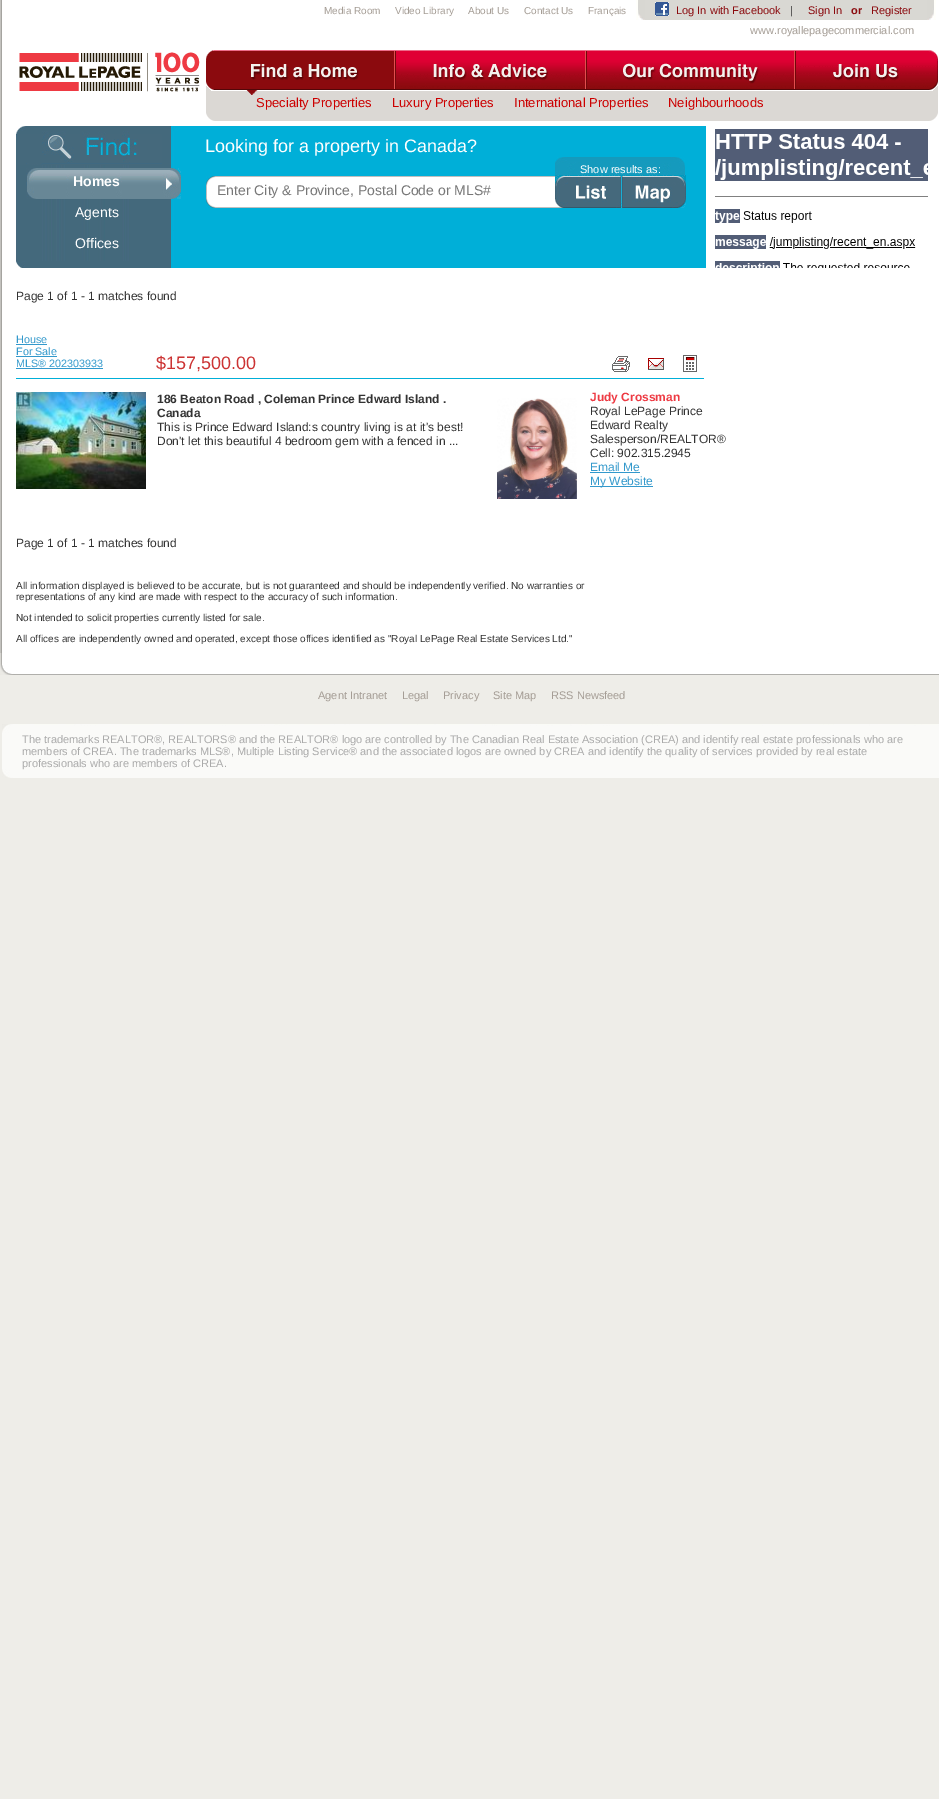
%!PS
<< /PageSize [939 1799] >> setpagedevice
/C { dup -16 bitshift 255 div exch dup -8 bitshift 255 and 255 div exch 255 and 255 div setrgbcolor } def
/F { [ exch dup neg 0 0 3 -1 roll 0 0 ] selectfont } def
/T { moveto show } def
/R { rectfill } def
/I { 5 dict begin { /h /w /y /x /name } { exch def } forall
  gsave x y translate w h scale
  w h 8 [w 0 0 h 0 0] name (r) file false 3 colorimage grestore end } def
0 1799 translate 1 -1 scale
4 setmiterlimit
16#EEEDE8 C
0 0 939 1799 R
(1.rgb) 0 0 939 653 I
(2.rgb) 0 653 939 22 I
/LiberationSans-Regular 10 F
16#A59D95 C
(Media Room) 324 14 T
(Video Library) 395 14 T
(About Us) 468 14 T
(Contact Us) 524 14 T
(Français) 588 14 T
16#D9D8D3 C
645 0 282 20 R
(3.rgb) 927 0 9 20 I
(4.rgb) 636 0 9 20 I
(5.rgb) 655 2 14 14 I
/LiberationSans-Regular 11 F
16#8B0A0E C
(Log In with Facebook) 676 14 T
16#333333 C
(|) 790 14 T
16#8B0A0E C
(Sign In) 808 14 T
/LiberationSans-Bold 11 F
(or) 851 14 T
/LiberationSans-Regular 11 F
(Register) 871 14 T
16#A59D95 C
(www.royallepagecommercial.com) 750 34 T
(6.rgb) 19 52 181 40 I
(7.rgb) 206 86 732 35 I
(8.rgb) 206 50 189 40 I
(9.rgb) 395 50 191 40 I
(10.rgb) 586 50 209 40 I
(11.rgb) 795 50 143 40 I
/LiberationSans-Regular 13 F
16#CC0000 C
(Specialty Properties) 256 107 T
(Luxury Properties) 392 107 T
(International Properties) 514 107 T
(Neighbourhoods) 668 107 T
(12.rgb) 16 126 690 8 I
(13.rgb) 16 261 690 7 I
(14.rgb) 16 134 690 127 I
/LiberationSans-Regular 18 F
16#FFFFFF C
(Looking for a property in Canada?) 205 152 T
(15.rgb) 555 157 130 18 I
/LiberationSans-Regular 11 F
(Show results as:) 580 173 T
(16.rgb) 206 176 349 32 I
/LiberationSans-Regular 14 F
16#777777 C
(Enter City & Province, Postal Code or MLS#) 217 195 T
(17.rgb) 555 175 66 33 I
(18.rgb) 621 175 65 33 I
(19.rgb) 16 134 146 31 I
(20.rgb) 26 168 155 31 I
/LiberationSans-Bold 14 F
16#FFFFFF C
(Homes) 73 186 T
16#00AFD4 C
173 199 1 1 R
/LiberationSans-Regular 14 F
16#FFFFFF C
(Agents) 75 217 T
16#00AFD4 C
173 230 1 1 R
16#FFFFFF C
(Offices) 75 248 T
(21.rgb) 715 129 213 139 I
/LiberationSans-Regular 12 F
16#333333 C
(Page 1 of 1 - 1 matches found) 16 300 T
16#00AFD8 C
16 378 688 1 R
/LiberationSans-Regular 10.75 F
16#3399CC C
(House) 16 343 T
16 344 31 1 R
(For Sale) 16 355 T
16 356 41 1 R
(MLS® 202303933) 16 367 T
16 368 87 1 R
/LiberationSans-Regular 18 F
16#CC3333 C
($157,500.00) 156 369 T
(22.rgb) 609 352 24 24 I
(23.rgb) 644 352 24 24 I
(24.rgb) 678 352 24 24 I
(25.rgb) 16 392 130 97 I
/LiberationSans-Bold 12 F
16#333333 C
(186 Beaton Road , Coleman Prince Edward Island .) 157 403 T
(Canada) 157 417 T
/LiberationSans-Regular 12 F
(This is Prince Edward Island:s country living is at it's best!) 157 431 T
(Don't let this beautiful 4 bedroom gem with a fenced in ...) 157 445 T
(26.rgb) 497 398 80 101 I
/LiberationSans-Bold 12 F
16#EE3A43 C
(Judy Crossman) 590 401 T
/LiberationSans-Regular 12 F
16#333333 C
(Royal LePage Prince) 590 415 T
(Edward Realty) 590 429 T
(Salesperson/REALTOR®) 590 443 T
(Cell: 902.315.2945) 590 457 T
16#3399CC C
(Email Me) 590 471 T
590 472 50 1 R
590 486 63 1 R
(My Website) 590 485 T
16#333333 C
(Page 1 of 1 - 1 matches found) 16 547 T
/LiberationSans-Regular 10 F
(All information displayed is believed to be accurate, but is not guaranteed and should be independently verified. No warranties or) 16 589 T
(representations of any kind are made with respect to the accuracy of such information.) 16 600 T
(Not intended to solicit properties currently listed for sale.) 16 621 T
(All offices are independently owned and operated, except those offices identified as "Royal LePage Real Estate Services Ltd.") 16 642 T
/LiberationSans-Regular 11 F
16#A59D95 C
(Agent Intranet) 318 699 T
(Legal) 402 699 T
(Privacy) 443 699 T
(Site Map) 493 699 T
(RSS Newsfeed) 551 699 T
(27.rgb) 2 724 937 9 I
(28.rgb) 2 769 937 9 I
16#FAFAF8 C
2 733 937 36 R
16#AAAAAA C
(The trademarks REALTOR®, REALTORS® and the REALTOR® logo are controlled by The Canadian Real Estate Association \(CREA\) and identify real estate professionals who are) 22 743 T
(members of CREA. The trademarks MLS®, Multiple Listing Service® and the associated logos are owned by CREA and identify the quality of services provided by real estate) 22 755 T
(professionals who are members of CREA.) 22 767 T
showpage
